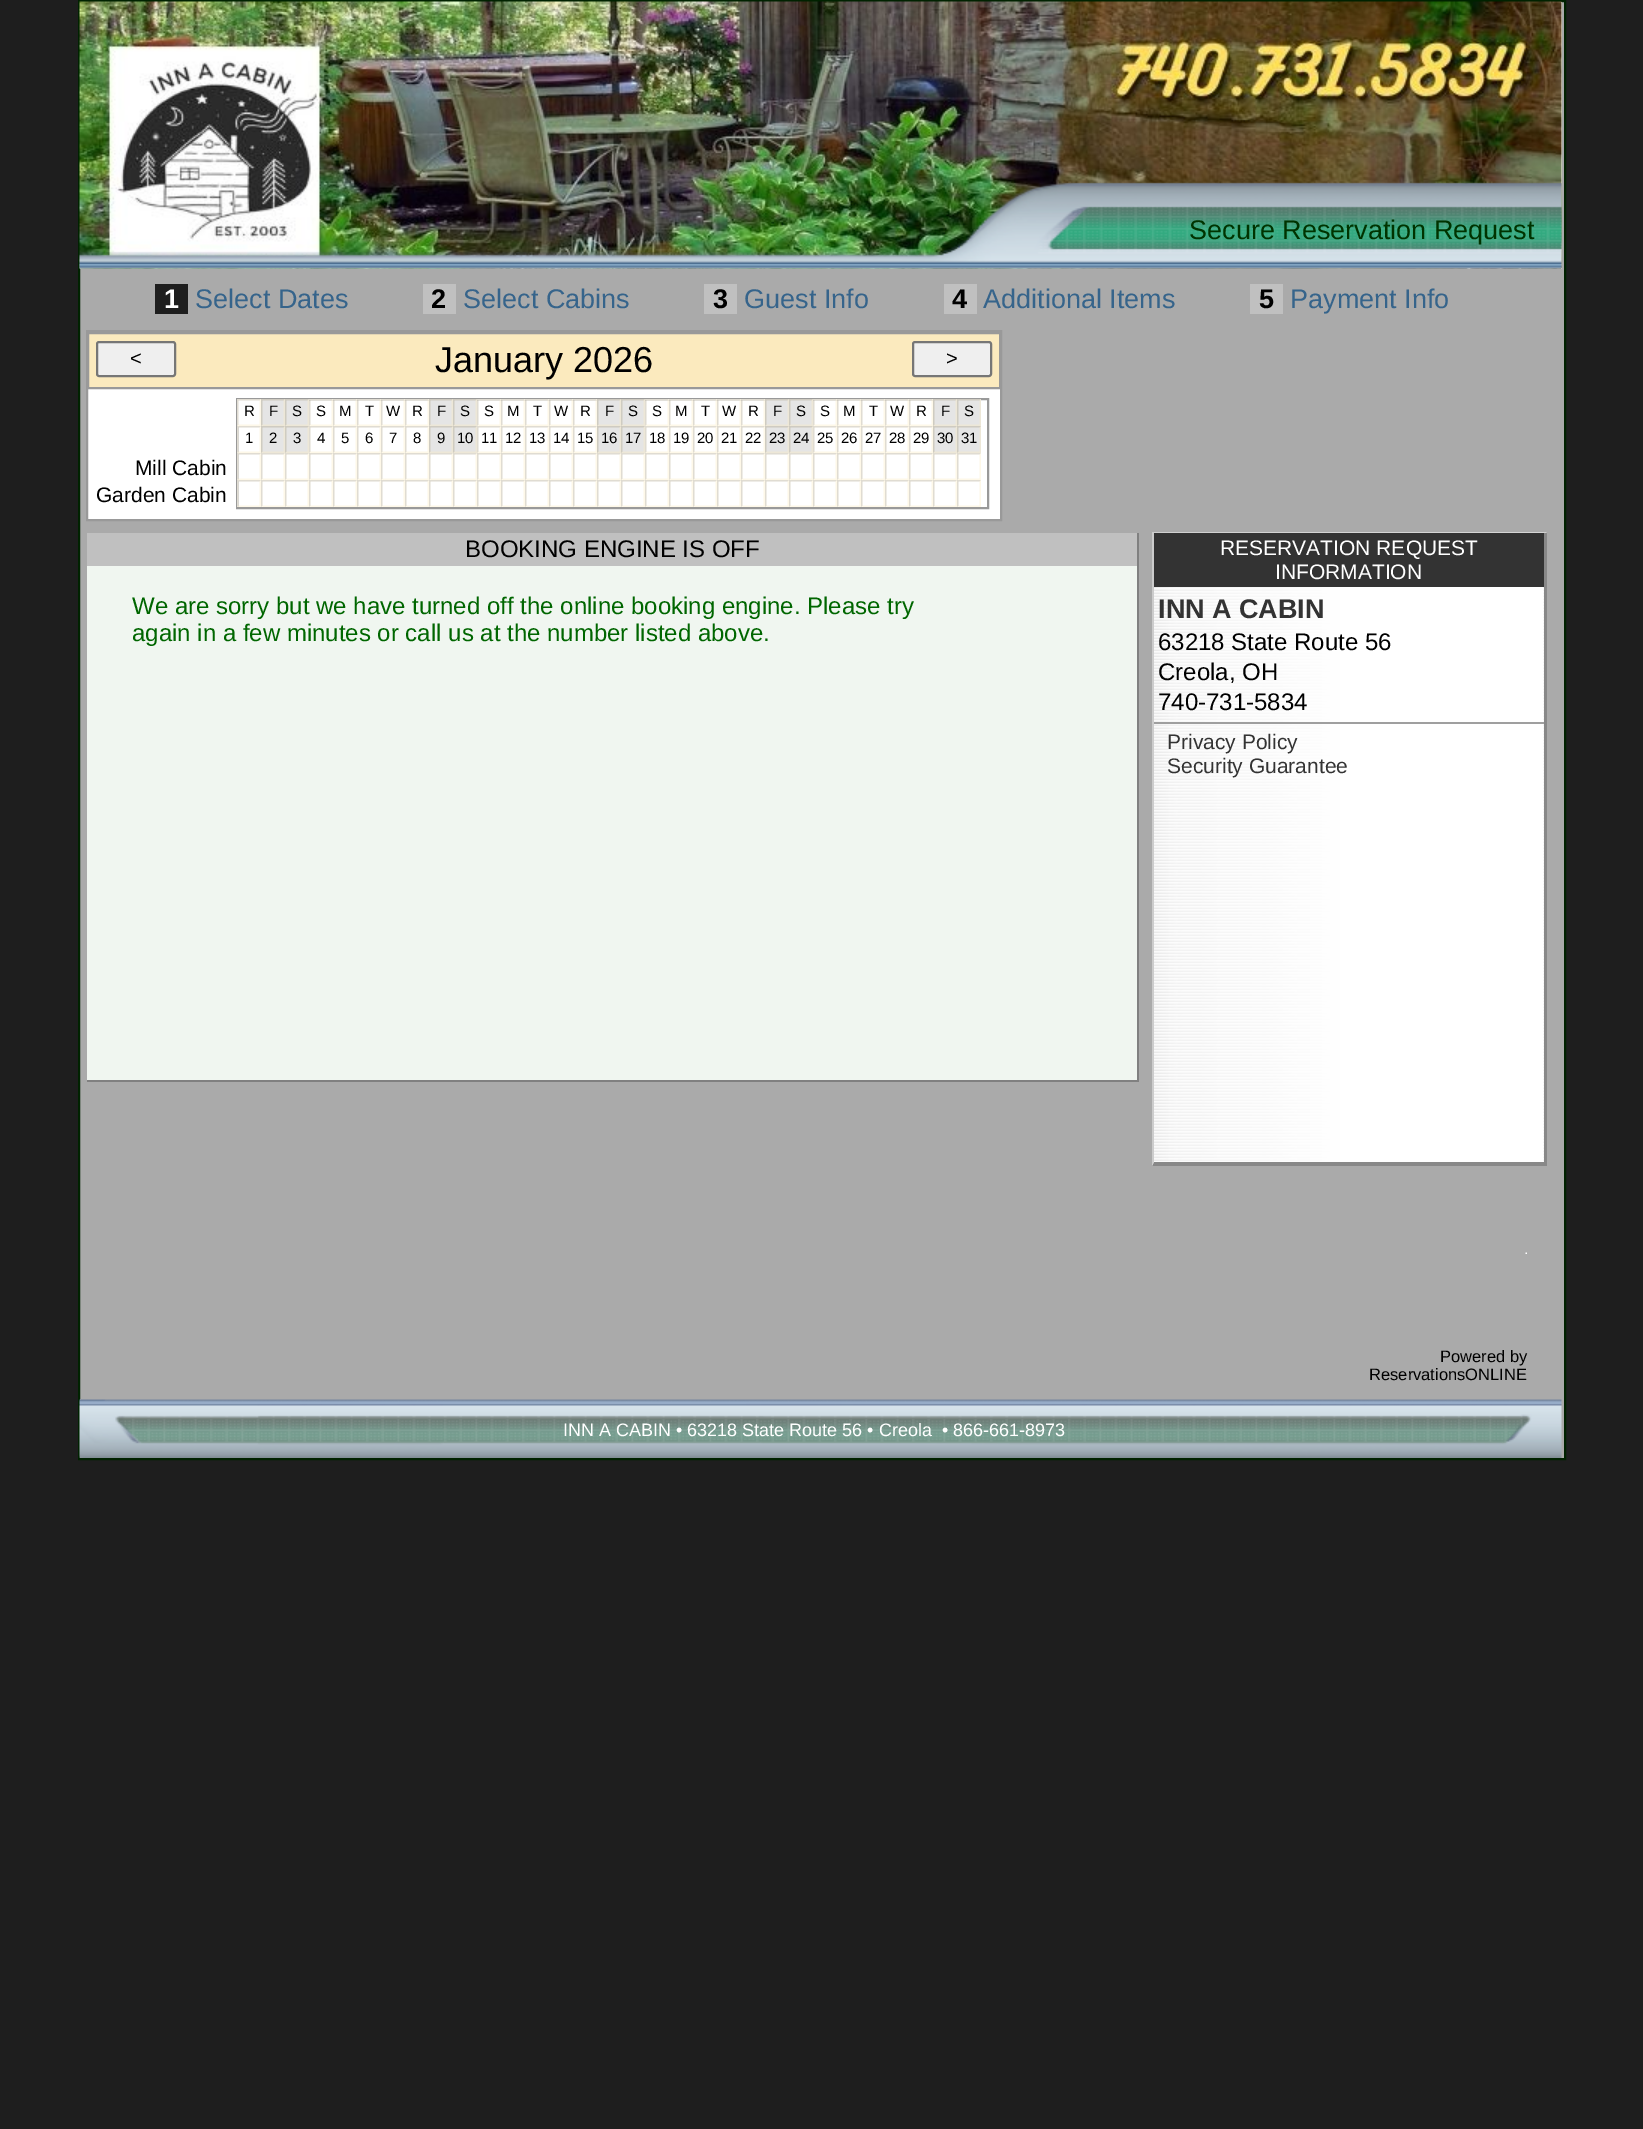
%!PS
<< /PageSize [1643 2129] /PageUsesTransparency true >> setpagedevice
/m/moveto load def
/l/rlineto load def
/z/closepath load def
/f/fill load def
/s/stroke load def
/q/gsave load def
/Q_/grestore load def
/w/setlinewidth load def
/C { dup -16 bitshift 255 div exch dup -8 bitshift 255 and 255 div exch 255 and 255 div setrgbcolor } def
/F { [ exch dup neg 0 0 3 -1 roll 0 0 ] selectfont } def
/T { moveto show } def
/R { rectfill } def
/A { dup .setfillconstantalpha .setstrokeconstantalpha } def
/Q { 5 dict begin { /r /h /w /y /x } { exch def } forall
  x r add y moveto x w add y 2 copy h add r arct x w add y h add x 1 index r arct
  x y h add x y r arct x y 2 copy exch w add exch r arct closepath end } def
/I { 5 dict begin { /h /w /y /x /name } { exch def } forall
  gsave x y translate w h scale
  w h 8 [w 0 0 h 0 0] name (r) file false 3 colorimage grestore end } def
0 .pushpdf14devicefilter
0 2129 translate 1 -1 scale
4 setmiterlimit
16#1E1E1E C
0 0 1643 2129 R
16#AAAAAA C
79 1 m 1486 0 l 0 1458 l -1486 0 l z q f Q_
16#002200 C
2 w
s
16#FFFFEE C
80 2 1482 267 R
(1.rgb) 79 1 1483 268 I
(2.rgb) 79 182 1483 87 I
/LiberationSans-Regular 27 F
16#003300 C
(Secure Reservation Request) 1189 239 T
16#1E1E1E C
155 284 33 30 R
/LiberationSans-Bold 27 F
16#FFFFFF C
(1) 164 308 T
/LiberationSans-Regular 27 F
16#36648B C
(Select Dates) 195 308 T
16#C0C0C0 C
423 284 33 30 R
/LiberationSans-Bold 27 F
16#000000 C
(2) 431 308 T
/LiberationSans-Regular 27 F
16#36648B C
(Select Cabins) 463 308 T
16#C0C0C0 C
704 284 33 30 R
/LiberationSans-Bold 27 F
16#000000 C
(3) 713 308 T
/LiberationSans-Regular 27 F
16#36648B C
(Guest Info) 744 308 T
16#C0C0C0 C
944 284 33 30 R
/LiberationSans-Bold 27 F
16#000000 C
(4) 952 308 T
/LiberationSans-Regular 27 F
16#36648B C
(Additional Items) 983 308 T
16#C0C0C0 C
1250 284 33 30 R
/LiberationSans-Bold 27 F
16#000000 C
(5) 1259 308 T
/LiberationSans-Regular 27 F
16#36648B C
(Payment Info) 1290 308 T
16#FFFFFF C
88 389 912 130 R
16#999999 C
87 331 914 189 rectstroke
16#FBEABE C
88 333 m 912 0 l 0 55 l -912 0 l z q f Q_
16#999999 C
s
16#EFEFEF C
97 342 78 34 2 Q q f Q_
16#767676 C
s
/LiberationSans-Regular 20 F
16#000000 C
(<) 130 365 T
/LiberationSans-Regular 36 F
(January 2026) 435 372 T
16#EFEFEF C
913 342 78 34 2 Q q f Q_
16#767676 C
s
/LiberationSans-Regular 20 F
16#000000 C
(>) 946 365 T
16#999999 C
237 399 751 109 rectstroke
16#FEFEFE C
237 399 24 27 R
16#E0DCD2 C
237 399 m 24 0 l -1.5 1.5 l -21 0 l z f
0.35 A
16#FBEABE C
261 399 m 0 27 l -1.5 -1.5 l 0 -24 l z f
261 426 m -24 0 l 1.5 -1.5 l 21 0 l z f
16#A79C7F C
237 426 m 0 -27 l 1.5 1.5 l 0 24 l z f
/LiberationSans-Regular 15 F
1 A
16#000000 C
(R) 244 416 T
16#E5E5E5 C
261 399 48 27 R
16#CFCBC1 C
261 399 m 24 0 l -1.5 1.5 l -21 0 l z f
0.35 A
16#FBEABE C
285 399 m 0 27 l -1.5 -1.5 l 0 -24 l z f
285 426 m -24 0 l 1.5 -1.5 l 21 0 l z f
16#A79C7F C
261 426 m 0 -27 l 1.5 1.5 l 0 24 l z f
1 A
16#000000 C
(F) 269 416 T
16#CFCBC1 C
285 399 m 24 0 l -1.5 1.5 l -21 0 l z f
0.35 A
16#FBEABE C
309 399 m 0 27 l -1.5 -1.5 l 0 -24 l z f
309 426 m -24 0 l 1.5 -1.5 l 21 0 l z f
16#A79C7F C
285 426 m 0 -27 l 1.5 1.5 l 0 24 l z f
1 A
16#000000 C
(S) 292 416 T
16#FEFEFE C
309 399 120 1 R
16#E0DCD2 C
309 399 m 24 0 l -1.5 1.5 l -21 0 l z f
0.35 A
16#FBEABE C
333 399 m 0 27 l -1.5 -1.5 l 0 -24 l z f
333 426 m -24 0 l 1.5 -1.5 l 21 0 l z f
16#A79C7F C
309 426 m 0 -27 l 1.5 1.5 l 0 24 l z f
1 A
16#000000 C
(S) 316 416 T
16#E0DCD2 C
333 399 m 24 0 l -1.5 1.5 l -21 0 l z f
0.35 A
16#FBEABE C
357 399 m 0 27 l -1.5 -1.5 l 0 -24 l z f
357 426 m -24 0 l 1.5 -1.5 l 21 0 l z f
16#A79C7F C
333 426 m 0 -27 l 1.5 1.5 l 0 24 l z f
1 A
16#000000 C
(M) 339 416 T
16#E0DCD2 C
357 399 m 24 0 l -1.5 1.5 l -21 0 l z f
0.35 A
16#FBEABE C
381 399 m 0 27 l -1.5 -1.5 l 0 -24 l z f
381 426 m -24 0 l 1.5 -1.5 l 21 0 l z f
16#A79C7F C
357 426 m 0 -27 l 1.5 1.5 l 0 24 l z f
1 A
16#000000 C
(T) 365 416 T
16#E0DCD2 C
381 399 m 24 0 l -1.5 1.5 l -21 0 l z f
0.35 A
16#FBEABE C
405 399 m 0 27 l -1.5 -1.5 l 0 -24 l z f
405 426 m -24 0 l 1.5 -1.5 l 21 0 l z f
16#A79C7F C
381 426 m 0 -27 l 1.5 1.5 l 0 24 l z f
1 A
16#000000 C
(W) 386 416 T
16#E0DCD2 C
405 399 m 24 0 l -1.5 1.5 l -21 0 l z f
0.35 A
16#FBEABE C
429 399 m 0 27 l -1.5 -1.5 l 0 -24 l z f
429 426 m -24 0 l 1.5 -1.5 l 21 0 l z f
16#A79C7F C
405 426 m 0 -27 l 1.5 1.5 l 0 24 l z f
1 A
16#000000 C
(R) 412 416 T
16#E5E5E5 C
429 399 48 27 R
16#CFCBC1 C
429 399 m 24 0 l -1.5 1.5 l -21 0 l z f
0.35 A
16#FBEABE C
453 399 m 0 27 l -1.5 -1.5 l 0 -24 l z f
453 426 m -24 0 l 1.5 -1.5 l 21 0 l z f
16#A79C7F C
429 426 m 0 -27 l 1.5 1.5 l 0 24 l z f
1 A
16#000000 C
(F) 437 416 T
16#CFCBC1 C
453 399 m 24 0 l -1.5 1.5 l -21 0 l z f
0.35 A
16#FBEABE C
477 399 m 0 27 l -1.5 -1.5 l 0 -24 l z f
477 426 m -24 0 l 1.5 -1.5 l 21 0 l z f
16#A79C7F C
453 426 m 0 -27 l 1.5 1.5 l 0 24 l z f
1 A
16#000000 C
(S) 460 416 T
16#FEFEFE C
477 399 120 1 R
16#E0DCD2 C
477 399 m 24 0 l -1.5 1.5 l -21 0 l z f
0.35 A
16#FBEABE C
501 399 m 0 27 l -1.5 -1.5 l 0 -24 l z f
501 426 m -24 0 l 1.5 -1.5 l 21 0 l z f
16#A79C7F C
477 426 m 0 -27 l 1.5 1.5 l 0 24 l z f
1 A
16#000000 C
(S) 484 416 T
16#E0DCD2 C
501 399 m 24 0 l -1.5 1.5 l -21 0 l z f
0.35 A
16#FBEABE C
525 399 m 0 27 l -1.5 -1.5 l 0 -24 l z f
525 426 m -24 0 l 1.5 -1.5 l 21 0 l z f
16#A79C7F C
501 426 m 0 -27 l 1.5 1.5 l 0 24 l z f
1 A
16#000000 C
(M) 507 416 T
16#E0DCD2 C
525 399 m 24 0 l -1.5 1.5 l -21 0 l z f
0.35 A
16#FBEABE C
549 399 m 0 27 l -1.5 -1.5 l 0 -24 l z f
549 426 m -24 0 l 1.5 -1.5 l 21 0 l z f
16#A79C7F C
525 426 m 0 -27 l 1.5 1.5 l 0 24 l z f
1 A
16#000000 C
(T) 533 416 T
16#E0DCD2 C
549 399 m 24 0 l -1.5 1.5 l -21 0 l z f
0.35 A
16#FBEABE C
573 399 m 0 27 l -1.5 -1.5 l 0 -24 l z f
573 426 m -24 0 l 1.5 -1.5 l 21 0 l z f
16#A79C7F C
549 426 m 0 -27 l 1.5 1.5 l 0 24 l z f
1 A
16#000000 C
(W) 554 416 T
16#E0DCD2 C
573 399 m 24 0 l -1.5 1.5 l -21 0 l z f
0.35 A
16#FBEABE C
597 399 m 0 27 l -1.5 -1.5 l 0 -24 l z f
597 426 m -24 0 l 1.5 -1.5 l 21 0 l z f
16#A79C7F C
573 426 m 0 -27 l 1.5 1.5 l 0 24 l z f
1 A
16#000000 C
(R) 580 416 T
16#E5E5E5 C
597 399 48 27 R
16#CFCBC1 C
597 399 m 24 0 l -1.5 1.5 l -21 0 l z f
0.35 A
16#FBEABE C
621 399 m 0 27 l -1.5 -1.5 l 0 -24 l z f
621 426 m -24 0 l 1.5 -1.5 l 21 0 l z f
16#A79C7F C
597 426 m 0 -27 l 1.5 1.5 l 0 24 l z f
1 A
16#000000 C
(F) 605 416 T
16#CFCBC1 C
621 399 m 24 0 l -1.5 1.5 l -21 0 l z f
0.35 A
16#FBEABE C
645 399 m 0 27 l -1.5 -1.5 l 0 -24 l z f
645 426 m -24 0 l 1.5 -1.5 l 21 0 l z f
16#A79C7F C
621 426 m 0 -27 l 1.5 1.5 l 0 24 l z f
1 A
16#000000 C
(S) 628 416 T
16#FEFEFE C
645 399 120 1 R
16#E0DCD2 C
645 399 m 24 0 l -1.5 1.5 l -21 0 l z f
0.35 A
16#FBEABE C
669 399 m 0 27 l -1.5 -1.5 l 0 -24 l z f
669 426 m -24 0 l 1.5 -1.5 l 21 0 l z f
16#A79C7F C
645 426 m 0 -27 l 1.5 1.5 l 0 24 l z f
1 A
16#000000 C
(S) 652 416 T
16#E0DCD2 C
669 399 m 24 0 l -1.5 1.5 l -21 0 l z f
0.35 A
16#FBEABE C
693 399 m 0 27 l -1.5 -1.5 l 0 -24 l z f
693 426 m -24 0 l 1.5 -1.5 l 21 0 l z f
16#A79C7F C
669 426 m 0 -27 l 1.5 1.5 l 0 24 l z f
1 A
16#000000 C
(M) 675 416 T
16#E0DCD2 C
693 399 m 24 0 l -1.5 1.5 l -21 0 l z f
0.35 A
16#FBEABE C
717 399 m 0 27 l -1.5 -1.5 l 0 -24 l z f
717 426 m -24 0 l 1.5 -1.5 l 21 0 l z f
16#A79C7F C
693 426 m 0 -27 l 1.5 1.5 l 0 24 l z f
1 A
16#000000 C
(T) 701 416 T
16#E0DCD2 C
717 399 m 24 0 l -1.5 1.5 l -21 0 l z f
0.35 A
16#FBEABE C
741 399 m 0 27 l -1.5 -1.5 l 0 -24 l z f
741 426 m -24 0 l 1.5 -1.5 l 21 0 l z f
16#A79C7F C
717 426 m 0 -27 l 1.5 1.5 l 0 24 l z f
1 A
16#000000 C
(W) 722 416 T
16#E0DCD2 C
741 399 m 24 0 l -1.5 1.5 l -21 0 l z f
0.35 A
16#FBEABE C
765 399 m 0 27 l -1.5 -1.5 l 0 -24 l z f
765 426 m -24 0 l 1.5 -1.5 l 21 0 l z f
16#A79C7F C
741 426 m 0 -27 l 1.5 1.5 l 0 24 l z f
1 A
16#000000 C
(R) 748 416 T
16#E5E5E5 C
765 399 48 27 R
16#CFCBC1 C
765 399 m 24 0 l -1.5 1.5 l -21 0 l z f
0.35 A
16#FBEABE C
789 399 m 0 27 l -1.5 -1.5 l 0 -24 l z f
789 426 m -24 0 l 1.5 -1.5 l 21 0 l z f
16#A79C7F C
765 426 m 0 -27 l 1.5 1.5 l 0 24 l z f
1 A
16#000000 C
(F) 773 416 T
16#CFCBC1 C
789 399 m 24 0 l -1.5 1.5 l -21 0 l z f
0.35 A
16#FBEABE C
813 399 m 0 27 l -1.5 -1.5 l 0 -24 l z f
813 426 m -24 0 l 1.5 -1.5 l 21 0 l z f
16#A79C7F C
789 426 m 0 -27 l 1.5 1.5 l 0 24 l z f
1 A
16#000000 C
(S) 796 416 T
16#FEFEFE C
813 399 120 1 R
16#E0DCD2 C
813 399 m 24 0 l -1.5 1.5 l -21 0 l z f
0.35 A
16#FBEABE C
837 399 m 0 27 l -1.5 -1.5 l 0 -24 l z f
837 426 m -24 0 l 1.5 -1.5 l 21 0 l z f
16#A79C7F C
813 426 m 0 -27 l 1.5 1.5 l 0 24 l z f
1 A
16#000000 C
(S) 820 416 T
16#E0DCD2 C
837 399 m 24 0 l -1.5 1.5 l -21 0 l z f
0.35 A
16#FBEABE C
861 399 m 0 27 l -1.5 -1.5 l 0 -24 l z f
861 426 m -24 0 l 1.5 -1.5 l 21 0 l z f
16#A79C7F C
837 426 m 0 -27 l 1.5 1.5 l 0 24 l z f
1 A
16#000000 C
(M) 843 416 T
16#E0DCD2 C
861 399 m 24 0 l -1.5 1.5 l -21 0 l z f
0.35 A
16#FBEABE C
885 399 m 0 27 l -1.5 -1.5 l 0 -24 l z f
885 426 m -24 0 l 1.5 -1.5 l 21 0 l z f
16#A79C7F C
861 426 m 0 -27 l 1.5 1.5 l 0 24 l z f
1 A
16#000000 C
(T) 869 416 T
16#E0DCD2 C
885 399 m 24 0 l -1.5 1.5 l -21 0 l z f
0.35 A
16#FBEABE C
909 399 m 0 27 l -1.5 -1.5 l 0 -24 l z f
909 426 m -24 0 l 1.5 -1.5 l 21 0 l z f
16#A79C7F C
885 426 m 0 -27 l 1.5 1.5 l 0 24 l z f
1 A
16#000000 C
(W) 890 416 T
16#E0DCD2 C
909 399 m 24 0 l -1.5 1.5 l -21 0 l z f
0.35 A
16#FBEABE C
933 399 m 0 27 l -1.5 -1.5 l 0 -24 l z f
933 426 m -24 0 l 1.5 -1.5 l 21 0 l z f
16#A79C7F C
909 426 m 0 -27 l 1.5 1.5 l 0 24 l z f
1 A
16#000000 C
(R) 916 416 T
16#E5E5E5 C
933 399 48 27 R
16#CFCBC1 C
933 399 m 24 0 l -1.5 1.5 l -21 0 l z f
0.35 A
16#FBEABE C
957 399 m 0 27 l -1.5 -1.5 l 0 -24 l z f
957 426 m -24 0 l 1.5 -1.5 l 21 0 l z f
16#A79C7F C
933 426 m 0 -27 l 1.5 1.5 l 0 24 l z f
1 A
16#000000 C
(F) 941 416 T
16#CFCBC1 C
957 399 m 24 0 l -1.5 1.5 l -21 0 l z f
0.35 A
16#FBEABE C
981 399 m 0 27 l -1.5 -1.5 l 0 -24 l z f
981 426 m -24 0 l 1.5 -1.5 l 21 0 l z f
16#A79C7F C
957 426 m 0 -27 l 1.5 1.5 l 0 24 l z f
1 A
16#000000 C
(S) 964 416 T
16#FEFEFE C
237 426 1 54 R
16#E0DCD2 C
237 426 m 24 0 l -1.5 1.5 l -21 0 l z f
0.35 A
16#FBEABE C
261 426 m 0 27 l -1.5 -1.5 l 0 -24 l z f
261 453 m -24 0 l 1.5 -1.5 l 21 0 l z f
16#A79C7F C
237 453 m 0 -27 l 1.5 1.5 l 0 24 l z f
1 A
16#000000 C
(1) 245 443 T
16#E5E5E5 C
261 426 48 27 R
16#CFCBC1 C
261 426 m 24 0 l -1.5 1.5 l -21 0 l z f
0.35 A
16#FBEABE C
285 426 m 0 27 l -1.5 -1.5 l 0 -24 l z f
285 453 m -24 0 l 1.5 -1.5 l 21 0 l z f
16#A79C7F C
261 453 m 0 -27 l 1.5 1.5 l 0 24 l z f
1 A
16#000000 C
(2) 269 443 T
16#CFCBC1 C
285 426 m 24 0 l -1.5 1.5 l -21 0 l z f
0.35 A
16#FBEABE C
309 426 m 0 27 l -1.5 -1.5 l 0 -24 l z f
309 453 m -24 0 l 1.5 -1.5 l 21 0 l z f
16#A79C7F C
285 453 m 0 -27 l 1.5 1.5 l 0 24 l z f
1 A
16#000000 C
(3) 293 443 T
16#E0DCD2 C
309 426 m 24 0 l -1.5 1.5 l -21 0 l z f
0.35 A
16#FBEABE C
333 426 m 0 27 l -1.5 -1.5 l 0 -24 l z f
333 453 m -24 0 l 1.5 -1.5 l 21 0 l z f
16#A79C7F C
309 453 m 0 -27 l 1.5 1.5 l 0 24 l z f
1 A
16#000000 C
(4) 317 443 T
16#E0DCD2 C
333 426 m 24 0 l -1.5 1.5 l -21 0 l z f
0.35 A
16#FBEABE C
357 426 m 0 27 l -1.5 -1.5 l 0 -24 l z f
357 453 m -24 0 l 1.5 -1.5 l 21 0 l z f
16#A79C7F C
333 453 m 0 -27 l 1.5 1.5 l 0 24 l z f
1 A
16#000000 C
(5) 341 443 T
16#E0DCD2 C
357 426 m 24 0 l -1.5 1.5 l -21 0 l z f
0.35 A
16#FBEABE C
381 426 m 0 27 l -1.5 -1.5 l 0 -24 l z f
381 453 m -24 0 l 1.5 -1.5 l 21 0 l z f
16#A79C7F C
357 453 m 0 -27 l 1.5 1.5 l 0 24 l z f
1 A
16#000000 C
(6) 365 443 T
16#E0DCD2 C
381 426 m 24 0 l -1.5 1.5 l -21 0 l z f
0.35 A
16#FBEABE C
405 426 m 0 27 l -1.5 -1.5 l 0 -24 l z f
405 453 m -24 0 l 1.5 -1.5 l 21 0 l z f
16#A79C7F C
381 453 m 0 -27 l 1.5 1.5 l 0 24 l z f
1 A
16#000000 C
(7) 389 443 T
16#E0DCD2 C
405 426 m 24 0 l -1.5 1.5 l -21 0 l z f
0.35 A
16#FBEABE C
429 426 m 0 27 l -1.5 -1.5 l 0 -24 l z f
429 453 m -24 0 l 1.5 -1.5 l 21 0 l z f
16#A79C7F C
405 453 m 0 -27 l 1.5 1.5 l 0 24 l z f
1 A
16#000000 C
(8) 413 443 T
16#E5E5E5 C
429 426 48 27 R
16#CFCBC1 C
429 426 m 24 0 l -1.5 1.5 l -21 0 l z f
0.35 A
16#FBEABE C
453 426 m 0 27 l -1.5 -1.5 l 0 -24 l z f
453 453 m -24 0 l 1.5 -1.5 l 21 0 l z f
16#A79C7F C
429 453 m 0 -27 l 1.5 1.5 l 0 24 l z f
1 A
16#000000 C
(9) 437 443 T
16#CFCBC1 C
453 426 m 24 0 l -1.5 1.5 l -21 0 l z f
0.35 A
16#FBEABE C
477 426 m 0 27 l -1.5 -1.5 l 0 -24 l z f
477 453 m -24 0 l 1.5 -1.5 l 21 0 l z f
16#A79C7F C
453 453 m 0 -27 l 1.5 1.5 l 0 24 l z f
1 A
16#000000 C
(10) 457 443 T
16#E0DCD2 C
477 426 m 24 0 l -1.5 1.5 l -21 0 l z f
0.35 A
16#FBEABE C
501 426 m 0 27 l -1.5 -1.5 l 0 -24 l z f
501 453 m -24 0 l 1.5 -1.5 l 21 0 l z f
16#A79C7F C
477 453 m 0 -27 l 1.5 1.5 l 0 24 l z f
1 A
16#000000 C
(11) 481 443 T
16#E0DCD2 C
501 426 m 24 0 l -1.5 1.5 l -21 0 l z f
0.35 A
16#FBEABE C
525 426 m 0 27 l -1.5 -1.5 l 0 -24 l z f
525 453 m -24 0 l 1.5 -1.5 l 21 0 l z f
16#A79C7F C
501 453 m 0 -27 l 1.5 1.5 l 0 24 l z f
1 A
16#000000 C
(12) 505 443 T
16#E0DCD2 C
525 426 m 24 0 l -1.5 1.5 l -21 0 l z f
0.35 A
16#FBEABE C
549 426 m 0 27 l -1.5 -1.5 l 0 -24 l z f
549 453 m -24 0 l 1.5 -1.5 l 21 0 l z f
16#A79C7F C
525 453 m 0 -27 l 1.5 1.5 l 0 24 l z f
1 A
16#000000 C
(13) 529 443 T
16#E0DCD2 C
549 426 m 24 0 l -1.5 1.5 l -21 0 l z f
0.35 A
16#FBEABE C
573 426 m 0 27 l -1.5 -1.5 l 0 -24 l z f
573 453 m -24 0 l 1.5 -1.5 l 21 0 l z f
16#A79C7F C
549 453 m 0 -27 l 1.5 1.5 l 0 24 l z f
1 A
16#000000 C
(14) 553 443 T
16#E0DCD2 C
573 426 m 24 0 l -1.5 1.5 l -21 0 l z f
0.35 A
16#FBEABE C
597 426 m 0 27 l -1.5 -1.5 l 0 -24 l z f
597 453 m -24 0 l 1.5 -1.5 l 21 0 l z f
16#A79C7F C
573 453 m 0 -27 l 1.5 1.5 l 0 24 l z f
1 A
16#000000 C
(15) 577 443 T
16#E5E5E5 C
597 426 48 27 R
16#CFCBC1 C
597 426 m 24 0 l -1.5 1.5 l -21 0 l z f
0.35 A
16#FBEABE C
621 426 m 0 27 l -1.5 -1.5 l 0 -24 l z f
621 453 m -24 0 l 1.5 -1.5 l 21 0 l z f
16#A79C7F C
597 453 m 0 -27 l 1.5 1.5 l 0 24 l z f
1 A
16#000000 C
(16) 601 443 T
16#CFCBC1 C
621 426 m 24 0 l -1.5 1.5 l -21 0 l z f
0.35 A
16#FBEABE C
645 426 m 0 27 l -1.5 -1.5 l 0 -24 l z f
645 453 m -24 0 l 1.5 -1.5 l 21 0 l z f
16#A79C7F C
621 453 m 0 -27 l 1.5 1.5 l 0 24 l z f
1 A
16#000000 C
(17) 625 443 T
16#E0DCD2 C
645 426 m 24 0 l -1.5 1.5 l -21 0 l z f
0.35 A
16#FBEABE C
669 426 m 0 27 l -1.5 -1.5 l 0 -24 l z f
669 453 m -24 0 l 1.5 -1.5 l 21 0 l z f
16#A79C7F C
645 453 m 0 -27 l 1.5 1.5 l 0 24 l z f
1 A
16#000000 C
(18) 649 443 T
16#E0DCD2 C
669 426 m 24 0 l -1.5 1.5 l -21 0 l z f
0.35 A
16#FBEABE C
693 426 m 0 27 l -1.5 -1.5 l 0 -24 l z f
693 453 m -24 0 l 1.5 -1.5 l 21 0 l z f
16#A79C7F C
669 453 m 0 -27 l 1.5 1.5 l 0 24 l z f
1 A
16#000000 C
(19) 673 443 T
16#E0DCD2 C
693 426 m 24 0 l -1.5 1.5 l -21 0 l z f
0.35 A
16#FBEABE C
717 426 m 0 27 l -1.5 -1.5 l 0 -24 l z f
717 453 m -24 0 l 1.5 -1.5 l 21 0 l z f
16#A79C7F C
693 453 m 0 -27 l 1.5 1.5 l 0 24 l z f
1 A
16#000000 C
(20) 697 443 T
16#E0DCD2 C
717 426 m 24 0 l -1.5 1.5 l -21 0 l z f
0.35 A
16#FBEABE C
741 426 m 0 27 l -1.5 -1.5 l 0 -24 l z f
741 453 m -24 0 l 1.5 -1.5 l 21 0 l z f
16#A79C7F C
717 453 m 0 -27 l 1.5 1.5 l 0 24 l z f
1 A
16#000000 C
(21) 721 443 T
16#E0DCD2 C
741 426 m 24 0 l -1.5 1.5 l -21 0 l z f
0.35 A
16#FBEABE C
765 426 m 0 27 l -1.5 -1.5 l 0 -24 l z f
765 453 m -24 0 l 1.5 -1.5 l 21 0 l z f
16#A79C7F C
741 453 m 0 -27 l 1.5 1.5 l 0 24 l z f
1 A
16#000000 C
(22) 745 443 T
16#E5E5E5 C
765 426 48 27 R
16#CFCBC1 C
765 426 m 24 0 l -1.5 1.5 l -21 0 l z f
0.35 A
16#FBEABE C
789 426 m 0 27 l -1.5 -1.5 l 0 -24 l z f
789 453 m -24 0 l 1.5 -1.5 l 21 0 l z f
16#A79C7F C
765 453 m 0 -27 l 1.5 1.5 l 0 24 l z f
1 A
16#000000 C
(23) 769 443 T
16#CFCBC1 C
789 426 m 24 0 l -1.5 1.5 l -21 0 l z f
0.35 A
16#FBEABE C
813 426 m 0 27 l -1.5 -1.5 l 0 -24 l z f
813 453 m -24 0 l 1.5 -1.5 l 21 0 l z f
16#A79C7F C
789 453 m 0 -27 l 1.5 1.5 l 0 24 l z f
1 A
16#000000 C
(24) 793 443 T
16#E0DCD2 C
813 426 m 24 0 l -1.5 1.5 l -21 0 l z f
0.35 A
16#FBEABE C
837 426 m 0 27 l -1.5 -1.5 l 0 -24 l z f
837 453 m -24 0 l 1.5 -1.5 l 21 0 l z f
16#A79C7F C
813 453 m 0 -27 l 1.5 1.5 l 0 24 l z f
1 A
16#000000 C
(25) 817 443 T
16#E0DCD2 C
837 426 m 24 0 l -1.5 1.5 l -21 0 l z f
0.35 A
16#FBEABE C
861 426 m 0 27 l -1.5 -1.5 l 0 -24 l z f
861 453 m -24 0 l 1.5 -1.5 l 21 0 l z f
16#A79C7F C
837 453 m 0 -27 l 1.5 1.5 l 0 24 l z f
1 A
16#000000 C
(26) 841 443 T
16#E0DCD2 C
861 426 m 24 0 l -1.5 1.5 l -21 0 l z f
0.35 A
16#FBEABE C
885 426 m 0 27 l -1.5 -1.5 l 0 -24 l z f
885 453 m -24 0 l 1.5 -1.5 l 21 0 l z f
16#A79C7F C
861 453 m 0 -27 l 1.5 1.5 l 0 24 l z f
1 A
16#000000 C
(27) 865 443 T
16#E0DCD2 C
885 426 m 24 0 l -1.5 1.5 l -21 0 l z f
0.35 A
16#FBEABE C
909 426 m 0 27 l -1.5 -1.5 l 0 -24 l z f
909 453 m -24 0 l 1.5 -1.5 l 21 0 l z f
16#A79C7F C
885 453 m 0 -27 l 1.5 1.5 l 0 24 l z f
1 A
16#000000 C
(28) 889 443 T
16#E0DCD2 C
909 426 m 24 0 l -1.5 1.5 l -21 0 l z f
0.35 A
16#FBEABE C
933 426 m 0 27 l -1.5 -1.5 l 0 -24 l z f
933 453 m -24 0 l 1.5 -1.5 l 21 0 l z f
16#A79C7F C
909 453 m 0 -27 l 1.5 1.5 l 0 24 l z f
1 A
16#000000 C
(29) 913 443 T
16#E5E5E5 C
933 426 48 27 R
16#CFCBC1 C
933 426 m 24 0 l -1.5 1.5 l -21 0 l z f
0.35 A
16#FBEABE C
957 426 m 0 27 l -1.5 -1.5 l 0 -24 l z f
957 453 m -24 0 l 1.5 -1.5 l 21 0 l z f
16#A79C7F C
933 453 m 0 -27 l 1.5 1.5 l 0 24 l z f
1 A
16#000000 C
(30) 937 443 T
16#CFCBC1 C
957 426 m 24 0 l -1.5 1.5 l -21 0 l z f
0.35 A
16#FBEABE C
981 426 m 0 27 l -1.5 -1.5 l 0 -24 l z f
981 453 m -24 0 l 1.5 -1.5 l 21 0 l z f
16#A79C7F C
957 453 m 0 -27 l 1.5 1.5 l 0 24 l z f
1 A
16#000000 C
(31) 961 443 T
16#E0DCD2 C
237 453 m 24 0 l -1.5 1.5 l -21 0 l z f
0.35 A
16#FBEABE C
261 453 m 0 27 l -1.5 -1.5 l 0 -24 l z f
261 480 m -24 0 l 1.5 -1.5 l 21 0 l z f
16#A79C7F C
237 480 m 0 -27 l 1.5 1.5 l 0 24 l z f
1 A
16#E0DCD2 C
261 453 m 24 0 l -1.5 1.5 l -21 0 l z f
0.35 A
16#FBEABE C
285 453 m 0 27 l -1.5 -1.5 l 0 -24 l z f
285 480 m -24 0 l 1.5 -1.5 l 21 0 l z f
16#A79C7F C
261 480 m 0 -27 l 1.5 1.5 l 0 24 l z f
1 A
16#E0DCD2 C
285 453 m 24 0 l -1.5 1.5 l -21 0 l z f
0.35 A
16#FBEABE C
309 453 m 0 27 l -1.5 -1.5 l 0 -24 l z f
309 480 m -24 0 l 1.5 -1.5 l 21 0 l z f
16#A79C7F C
285 480 m 0 -27 l 1.5 1.5 l 0 24 l z f
1 A
16#E0DCD2 C
309 453 m 24 0 l -1.5 1.5 l -21 0 l z f
0.35 A
16#FBEABE C
333 453 m 0 27 l -1.5 -1.5 l 0 -24 l z f
333 480 m -24 0 l 1.5 -1.5 l 21 0 l z f
16#A79C7F C
309 480 m 0 -27 l 1.5 1.5 l 0 24 l z f
1 A
16#E0DCD2 C
333 453 m 24 0 l -1.5 1.5 l -21 0 l z f
0.35 A
16#FBEABE C
357 453 m 0 27 l -1.5 -1.5 l 0 -24 l z f
357 480 m -24 0 l 1.5 -1.5 l 21 0 l z f
16#A79C7F C
333 480 m 0 -27 l 1.5 1.5 l 0 24 l z f
1 A
16#E0DCD2 C
357 453 m 24 0 l -1.5 1.5 l -21 0 l z f
0.35 A
16#FBEABE C
381 453 m 0 27 l -1.5 -1.5 l 0 -24 l z f
381 480 m -24 0 l 1.5 -1.5 l 21 0 l z f
16#A79C7F C
357 480 m 0 -27 l 1.5 1.5 l 0 24 l z f
1 A
16#E0DCD2 C
381 453 m 24 0 l -1.5 1.5 l -21 0 l z f
0.35 A
16#FBEABE C
405 453 m 0 27 l -1.5 -1.5 l 0 -24 l z f
405 480 m -24 0 l 1.5 -1.5 l 21 0 l z f
16#A79C7F C
381 480 m 0 -27 l 1.5 1.5 l 0 24 l z f
1 A
16#E0DCD2 C
405 453 m 24 0 l -1.5 1.5 l -21 0 l z f
0.35 A
16#FBEABE C
429 453 m 0 27 l -1.5 -1.5 l 0 -24 l z f
429 480 m -24 0 l 1.5 -1.5 l 21 0 l z f
16#A79C7F C
405 480 m 0 -27 l 1.5 1.5 l 0 24 l z f
1 A
16#E0DCD2 C
429 453 m 24 0 l -1.5 1.5 l -21 0 l z f
0.35 A
16#FBEABE C
453 453 m 0 27 l -1.5 -1.5 l 0 -24 l z f
453 480 m -24 0 l 1.5 -1.5 l 21 0 l z f
16#A79C7F C
429 480 m 0 -27 l 1.5 1.5 l 0 24 l z f
1 A
16#E0DCD2 C
453 453 m 24 0 l -1.5 1.5 l -21 0 l z f
0.35 A
16#FBEABE C
477 453 m 0 27 l -1.5 -1.5 l 0 -24 l z f
477 480 m -24 0 l 1.5 -1.5 l 21 0 l z f
16#A79C7F C
453 480 m 0 -27 l 1.5 1.5 l 0 24 l z f
1 A
16#E0DCD2 C
477 453 m 24 0 l -1.5 1.5 l -21 0 l z f
0.35 A
16#FBEABE C
501 453 m 0 27 l -1.5 -1.5 l 0 -24 l z f
501 480 m -24 0 l 1.5 -1.5 l 21 0 l z f
16#A79C7F C
477 480 m 0 -27 l 1.5 1.5 l 0 24 l z f
1 A
16#E0DCD2 C
501 453 m 24 0 l -1.5 1.5 l -21 0 l z f
0.35 A
16#FBEABE C
525 453 m 0 27 l -1.5 -1.5 l 0 -24 l z f
525 480 m -24 0 l 1.5 -1.5 l 21 0 l z f
16#A79C7F C
501 480 m 0 -27 l 1.5 1.5 l 0 24 l z f
1 A
16#E0DCD2 C
525 453 m 24 0 l -1.5 1.5 l -21 0 l z f
0.35 A
16#FBEABE C
549 453 m 0 27 l -1.5 -1.5 l 0 -24 l z f
549 480 m -24 0 l 1.5 -1.5 l 21 0 l z f
16#A79C7F C
525 480 m 0 -27 l 1.5 1.5 l 0 24 l z f
1 A
16#E0DCD2 C
549 453 m 24 0 l -1.5 1.5 l -21 0 l z f
0.35 A
16#FBEABE C
573 453 m 0 27 l -1.5 -1.5 l 0 -24 l z f
573 480 m -24 0 l 1.5 -1.5 l 21 0 l z f
16#A79C7F C
549 480 m 0 -27 l 1.5 1.5 l 0 24 l z f
1 A
16#E0DCD2 C
573 453 m 24 0 l -1.5 1.5 l -21 0 l z f
0.35 A
16#FBEABE C
597 453 m 0 27 l -1.5 -1.5 l 0 -24 l z f
597 480 m -24 0 l 1.5 -1.5 l 21 0 l z f
16#A79C7F C
573 480 m 0 -27 l 1.5 1.5 l 0 24 l z f
1 A
16#E0DCD2 C
597 453 m 24 0 l -1.5 1.5 l -21 0 l z f
0.35 A
16#FBEABE C
621 453 m 0 27 l -1.5 -1.5 l 0 -24 l z f
621 480 m -24 0 l 1.5 -1.5 l 21 0 l z f
16#A79C7F C
597 480 m 0 -27 l 1.5 1.5 l 0 24 l z f
1 A
16#E0DCD2 C
621 453 m 24 0 l -1.5 1.5 l -21 0 l z f
0.35 A
16#FBEABE C
645 453 m 0 27 l -1.5 -1.5 l 0 -24 l z f
645 480 m -24 0 l 1.5 -1.5 l 21 0 l z f
16#A79C7F C
621 480 m 0 -27 l 1.5 1.5 l 0 24 l z f
1 A
16#E0DCD2 C
645 453 m 24 0 l -1.5 1.5 l -21 0 l z f
0.35 A
16#FBEABE C
669 453 m 0 27 l -1.5 -1.5 l 0 -24 l z f
669 480 m -24 0 l 1.5 -1.5 l 21 0 l z f
16#A79C7F C
645 480 m 0 -27 l 1.5 1.5 l 0 24 l z f
1 A
16#E0DCD2 C
669 453 m 24 0 l -1.5 1.5 l -21 0 l z f
0.35 A
16#FBEABE C
693 453 m 0 27 l -1.5 -1.5 l 0 -24 l z f
693 480 m -24 0 l 1.5 -1.5 l 21 0 l z f
16#A79C7F C
669 480 m 0 -27 l 1.5 1.5 l 0 24 l z f
1 A
16#E0DCD2 C
693 453 m 24 0 l -1.5 1.5 l -21 0 l z f
0.35 A
16#FBEABE C
717 453 m 0 27 l -1.5 -1.5 l 0 -24 l z f
717 480 m -24 0 l 1.5 -1.5 l 21 0 l z f
16#A79C7F C
693 480 m 0 -27 l 1.5 1.5 l 0 24 l z f
1 A
16#E0DCD2 C
717 453 m 24 0 l -1.5 1.5 l -21 0 l z f
0.35 A
16#FBEABE C
741 453 m 0 27 l -1.5 -1.5 l 0 -24 l z f
741 480 m -24 0 l 1.5 -1.5 l 21 0 l z f
16#A79C7F C
717 480 m 0 -27 l 1.5 1.5 l 0 24 l z f
1 A
16#E0DCD2 C
741 453 m 24 0 l -1.5 1.5 l -21 0 l z f
0.35 A
16#FBEABE C
765 453 m 0 27 l -1.5 -1.5 l 0 -24 l z f
765 480 m -24 0 l 1.5 -1.5 l 21 0 l z f
16#A79C7F C
741 480 m 0 -27 l 1.5 1.5 l 0 24 l z f
1 A
16#E0DCD2 C
765 453 m 24 0 l -1.5 1.5 l -21 0 l z f
0.35 A
16#FBEABE C
789 453 m 0 27 l -1.5 -1.5 l 0 -24 l z f
789 480 m -24 0 l 1.5 -1.5 l 21 0 l z f
16#A79C7F C
765 480 m 0 -27 l 1.5 1.5 l 0 24 l z f
1 A
16#E0DCD2 C
789 453 m 24 0 l -1.5 1.5 l -21 0 l z f
0.35 A
16#FBEABE C
813 453 m 0 27 l -1.5 -1.5 l 0 -24 l z f
813 480 m -24 0 l 1.5 -1.5 l 21 0 l z f
16#A79C7F C
789 480 m 0 -27 l 1.5 1.5 l 0 24 l z f
1 A
16#E0DCD2 C
813 453 m 24 0 l -1.5 1.5 l -21 0 l z f
0.35 A
16#FBEABE C
837 453 m 0 27 l -1.5 -1.5 l 0 -24 l z f
837 480 m -24 0 l 1.5 -1.5 l 21 0 l z f
16#A79C7F C
813 480 m 0 -27 l 1.5 1.5 l 0 24 l z f
1 A
16#E0DCD2 C
837 453 m 24 0 l -1.5 1.5 l -21 0 l z f
0.35 A
16#FBEABE C
861 453 m 0 27 l -1.5 -1.5 l 0 -24 l z f
861 480 m -24 0 l 1.5 -1.5 l 21 0 l z f
16#A79C7F C
837 480 m 0 -27 l 1.5 1.5 l 0 24 l z f
1 A
16#E0DCD2 C
861 453 m 24 0 l -1.5 1.5 l -21 0 l z f
0.35 A
16#FBEABE C
885 453 m 0 27 l -1.5 -1.5 l 0 -24 l z f
885 480 m -24 0 l 1.5 -1.5 l 21 0 l z f
16#A79C7F C
861 480 m 0 -27 l 1.5 1.5 l 0 24 l z f
1 A
16#E0DCD2 C
885 453 m 24 0 l -1.5 1.5 l -21 0 l z f
0.35 A
16#FBEABE C
909 453 m 0 27 l -1.5 -1.5 l 0 -24 l z f
909 480 m -24 0 l 1.5 -1.5 l 21 0 l z f
16#A79C7F C
885 480 m 0 -27 l 1.5 1.5 l 0 24 l z f
1 A
16#E0DCD2 C
909 453 m 24 0 l -1.5 1.5 l -21 0 l z f
0.35 A
16#FBEABE C
933 453 m 0 27 l -1.5 -1.5 l 0 -24 l z f
933 480 m -24 0 l 1.5 -1.5 l 21 0 l z f
16#A79C7F C
909 480 m 0 -27 l 1.5 1.5 l 0 24 l z f
1 A
16#E0DCD2 C
933 453 m 24 0 l -1.5 1.5 l -21 0 l z f
0.35 A
16#FBEABE C
957 453 m 0 27 l -1.5 -1.5 l 0 -24 l z f
957 480 m -24 0 l 1.5 -1.5 l 21 0 l z f
16#A79C7F C
933 480 m 0 -27 l 1.5 1.5 l 0 24 l z f
1 A
16#E0DCD2 C
957 453 m 24 0 l -1.5 1.5 l -21 0 l z f
0.35 A
16#FBEABE C
981 453 m 0 27 l -1.5 -1.5 l 0 -24 l z f
981 480 m -24 0 l 1.5 -1.5 l 21 0 l z f
16#A79C7F C
957 480 m 0 -27 l 1.5 1.5 l 0 24 l z f
1 A
16#FEFEFE C
237 480 1 27 R
16#E0DCD2 C
237 480 m 24 0 l -1.5 1.5 l -21 0 l z f
0.35 A
16#FBEABE C
261 480 m 0 27 l -1.5 -1.5 l 0 -24 l z f
261 507 m -24 0 l 1.5 -1.5 l 21 0 l z f
16#A79C7F C
237 507 m 0 -27 l 1.5 1.5 l 0 24 l z f
1 A
16#E0DCD2 C
261 480 m 24 0 l -1.5 1.5 l -21 0 l z f
0.35 A
16#FBEABE C
285 480 m 0 27 l -1.5 -1.5 l 0 -24 l z f
285 507 m -24 0 l 1.5 -1.5 l 21 0 l z f
16#A79C7F C
261 507 m 0 -27 l 1.5 1.5 l 0 24 l z f
1 A
16#E0DCD2 C
285 480 m 24 0 l -1.5 1.5 l -21 0 l z f
0.35 A
16#FBEABE C
309 480 m 0 27 l -1.5 -1.5 l 0 -24 l z f
309 507 m -24 0 l 1.5 -1.5 l 21 0 l z f
16#A79C7F C
285 507 m 0 -27 l 1.5 1.5 l 0 24 l z f
1 A
16#E0DCD2 C
309 480 m 24 0 l -1.5 1.5 l -21 0 l z f
0.35 A
16#FBEABE C
333 480 m 0 27 l -1.5 -1.5 l 0 -24 l z f
333 507 m -24 0 l 1.5 -1.5 l 21 0 l z f
16#A79C7F C
309 507 m 0 -27 l 1.5 1.5 l 0 24 l z f
1 A
16#E0DCD2 C
333 480 m 24 0 l -1.5 1.5 l -21 0 l z f
0.35 A
16#FBEABE C
357 480 m 0 27 l -1.5 -1.5 l 0 -24 l z f
357 507 m -24 0 l 1.5 -1.5 l 21 0 l z f
16#A79C7F C
333 507 m 0 -27 l 1.5 1.5 l 0 24 l z f
1 A
16#E0DCD2 C
357 480 m 24 0 l -1.5 1.5 l -21 0 l z f
0.35 A
16#FBEABE C
381 480 m 0 27 l -1.5 -1.5 l 0 -24 l z f
381 507 m -24 0 l 1.5 -1.5 l 21 0 l z f
16#A79C7F C
357 507 m 0 -27 l 1.5 1.5 l 0 24 l z f
1 A
16#E0DCD2 C
381 480 m 24 0 l -1.5 1.5 l -21 0 l z f
0.35 A
16#FBEABE C
405 480 m 0 27 l -1.5 -1.5 l 0 -24 l z f
405 507 m -24 0 l 1.5 -1.5 l 21 0 l z f
16#A79C7F C
381 507 m 0 -27 l 1.5 1.5 l 0 24 l z f
1 A
16#E0DCD2 C
405 480 m 24 0 l -1.5 1.5 l -21 0 l z f
0.35 A
16#FBEABE C
429 480 m 0 27 l -1.5 -1.5 l 0 -24 l z f
429 507 m -24 0 l 1.5 -1.5 l 21 0 l z f
16#A79C7F C
405 507 m 0 -27 l 1.5 1.5 l 0 24 l z f
1 A
16#E0DCD2 C
429 480 m 24 0 l -1.5 1.5 l -21 0 l z f
0.35 A
16#FBEABE C
453 480 m 0 27 l -1.5 -1.5 l 0 -24 l z f
453 507 m -24 0 l 1.5 -1.5 l 21 0 l z f
16#A79C7F C
429 507 m 0 -27 l 1.5 1.5 l 0 24 l z f
1 A
16#E0DCD2 C
453 480 m 24 0 l -1.5 1.5 l -21 0 l z f
0.35 A
16#FBEABE C
477 480 m 0 27 l -1.5 -1.5 l 0 -24 l z f
477 507 m -24 0 l 1.5 -1.5 l 21 0 l z f
16#A79C7F C
453 507 m 0 -27 l 1.5 1.5 l 0 24 l z f
1 A
16#E0DCD2 C
477 480 m 24 0 l -1.5 1.5 l -21 0 l z f
0.35 A
16#FBEABE C
501 480 m 0 27 l -1.5 -1.5 l 0 -24 l z f
501 507 m -24 0 l 1.5 -1.5 l 21 0 l z f
16#A79C7F C
477 507 m 0 -27 l 1.5 1.5 l 0 24 l z f
1 A
16#E0DCD2 C
501 480 m 24 0 l -1.5 1.5 l -21 0 l z f
0.35 A
16#FBEABE C
525 480 m 0 27 l -1.5 -1.5 l 0 -24 l z f
525 507 m -24 0 l 1.5 -1.5 l 21 0 l z f
16#A79C7F C
501 507 m 0 -27 l 1.5 1.5 l 0 24 l z f
1 A
16#E0DCD2 C
525 480 m 24 0 l -1.5 1.5 l -21 0 l z f
0.35 A
16#FBEABE C
549 480 m 0 27 l -1.5 -1.5 l 0 -24 l z f
549 507 m -24 0 l 1.5 -1.5 l 21 0 l z f
16#A79C7F C
525 507 m 0 -27 l 1.5 1.5 l 0 24 l z f
1 A
16#E0DCD2 C
549 480 m 24 0 l -1.5 1.5 l -21 0 l z f
0.35 A
16#FBEABE C
573 480 m 0 27 l -1.5 -1.5 l 0 -24 l z f
573 507 m -24 0 l 1.5 -1.5 l 21 0 l z f
16#A79C7F C
549 507 m 0 -27 l 1.5 1.5 l 0 24 l z f
1 A
16#E0DCD2 C
573 480 m 24 0 l -1.5 1.5 l -21 0 l z f
0.35 A
16#FBEABE C
597 480 m 0 27 l -1.5 -1.5 l 0 -24 l z f
597 507 m -24 0 l 1.5 -1.5 l 21 0 l z f
16#A79C7F C
573 507 m 0 -27 l 1.5 1.5 l 0 24 l z f
1 A
16#E0DCD2 C
597 480 m 24 0 l -1.5 1.5 l -21 0 l z f
0.35 A
16#FBEABE C
621 480 m 0 27 l -1.5 -1.5 l 0 -24 l z f
621 507 m -24 0 l 1.5 -1.5 l 21 0 l z f
16#A79C7F C
597 507 m 0 -27 l 1.5 1.5 l 0 24 l z f
1 A
16#E0DCD2 C
621 480 m 24 0 l -1.5 1.5 l -21 0 l z f
0.35 A
16#FBEABE C
645 480 m 0 27 l -1.5 -1.5 l 0 -24 l z f
645 507 m -24 0 l 1.5 -1.5 l 21 0 l z f
16#A79C7F C
621 507 m 0 -27 l 1.5 1.5 l 0 24 l z f
1 A
16#E0DCD2 C
645 480 m 24 0 l -1.5 1.5 l -21 0 l z f
0.35 A
16#FBEABE C
669 480 m 0 27 l -1.5 -1.5 l 0 -24 l z f
669 507 m -24 0 l 1.5 -1.5 l 21 0 l z f
16#A79C7F C
645 507 m 0 -27 l 1.5 1.5 l 0 24 l z f
1 A
16#E0DCD2 C
669 480 m 24 0 l -1.5 1.5 l -21 0 l z f
0.35 A
16#FBEABE C
693 480 m 0 27 l -1.5 -1.5 l 0 -24 l z f
693 507 m -24 0 l 1.5 -1.5 l 21 0 l z f
16#A79C7F C
669 507 m 0 -27 l 1.5 1.5 l 0 24 l z f
1 A
16#E0DCD2 C
693 480 m 24 0 l -1.5 1.5 l -21 0 l z f
0.35 A
16#FBEABE C
717 480 m 0 27 l -1.5 -1.5 l 0 -24 l z f
717 507 m -24 0 l 1.5 -1.5 l 21 0 l z f
16#A79C7F C
693 507 m 0 -27 l 1.5 1.5 l 0 24 l z f
1 A
16#E0DCD2 C
717 480 m 24 0 l -1.5 1.5 l -21 0 l z f
0.35 A
16#FBEABE C
741 480 m 0 27 l -1.5 -1.5 l 0 -24 l z f
741 507 m -24 0 l 1.5 -1.5 l 21 0 l z f
16#A79C7F C
717 507 m 0 -27 l 1.5 1.5 l 0 24 l z f
1 A
16#E0DCD2 C
741 480 m 24 0 l -1.5 1.5 l -21 0 l z f
0.35 A
16#FBEABE C
765 480 m 0 27 l -1.5 -1.5 l 0 -24 l z f
765 507 m -24 0 l 1.5 -1.5 l 21 0 l z f
16#A79C7F C
741 507 m 0 -27 l 1.5 1.5 l 0 24 l z f
1 A
16#E0DCD2 C
765 480 m 24 0 l -1.5 1.5 l -21 0 l z f
0.35 A
16#FBEABE C
789 480 m 0 27 l -1.5 -1.5 l 0 -24 l z f
789 507 m -24 0 l 1.5 -1.5 l 21 0 l z f
16#A79C7F C
765 507 m 0 -27 l 1.5 1.5 l 0 24 l z f
1 A
16#E0DCD2 C
789 480 m 24 0 l -1.5 1.5 l -21 0 l z f
0.35 A
16#FBEABE C
813 480 m 0 27 l -1.5 -1.5 l 0 -24 l z f
813 507 m -24 0 l 1.5 -1.5 l 21 0 l z f
16#A79C7F C
789 507 m 0 -27 l 1.5 1.5 l 0 24 l z f
1 A
16#E0DCD2 C
813 480 m 24 0 l -1.5 1.5 l -21 0 l z f
0.35 A
16#FBEABE C
837 480 m 0 27 l -1.5 -1.5 l 0 -24 l z f
837 507 m -24 0 l 1.5 -1.5 l 21 0 l z f
16#A79C7F C
813 507 m 0 -27 l 1.5 1.5 l 0 24 l z f
1 A
16#E0DCD2 C
837 480 m 24 0 l -1.5 1.5 l -21 0 l z f
0.35 A
16#FBEABE C
861 480 m 0 27 l -1.5 -1.5 l 0 -24 l z f
861 507 m -24 0 l 1.5 -1.5 l 21 0 l z f
16#A79C7F C
837 507 m 0 -27 l 1.5 1.5 l 0 24 l z f
1 A
16#E0DCD2 C
861 480 m 24 0 l -1.5 1.5 l -21 0 l z f
0.35 A
16#FBEABE C
885 480 m 0 27 l -1.5 -1.5 l 0 -24 l z f
885 507 m -24 0 l 1.5 -1.5 l 21 0 l z f
16#A79C7F C
861 507 m 0 -27 l 1.5 1.5 l 0 24 l z f
1 A
16#E0DCD2 C
885 480 m 24 0 l -1.5 1.5 l -21 0 l z f
0.35 A
16#FBEABE C
909 480 m 0 27 l -1.5 -1.5 l 0 -24 l z f
909 507 m -24 0 l 1.5 -1.5 l 21 0 l z f
16#A79C7F C
885 507 m 0 -27 l 1.5 1.5 l 0 24 l z f
1 A
16#E0DCD2 C
909 480 m 24 0 l -1.5 1.5 l -21 0 l z f
0.35 A
16#FBEABE C
933 480 m 0 27 l -1.5 -1.5 l 0 -24 l z f
933 507 m -24 0 l 1.5 -1.5 l 21 0 l z f
16#A79C7F C
909 507 m 0 -27 l 1.5 1.5 l 0 24 l z f
1 A
16#E0DCD2 C
933 480 m 24 0 l -1.5 1.5 l -21 0 l z f
0.35 A
16#FBEABE C
957 480 m 0 27 l -1.5 -1.5 l 0 -24 l z f
957 507 m -24 0 l 1.5 -1.5 l 21 0 l z f
16#A79C7F C
933 507 m 0 -27 l 1.5 1.5 l 0 24 l z f
1 A
16#E0DCD2 C
957 480 m 24 0 l -1.5 1.5 l -21 0 l z f
0.35 A
16#FBEABE C
981 480 m 0 27 l -1.5 -1.5 l 0 -24 l z f
981 507 m -24 0 l 1.5 -1.5 l 21 0 l z f
16#A79C7F C
957 507 m 0 -27 l 1.5 1.5 l 0 24 l z f
/LiberationSans-Regular 21 F
1 A
16#000000 C
(Mill Cabin) 135 475 T
(Garden Cabin) 96 502 T
16#F0F6F0 C
87 566 1050 514 R
16#808080 C
1137 533 2 549 R
87 1080 1052 2 R
16#C0C0C0 C
87 533 1050 33 R
/LiberationSans-Regular 24 F
16#000000 C
(BOOKING ENGINE IS OFF) 465 557 T
16#006600 C
(We are sorry but we have turned off the online booking engine. Please try) 132 614 T
(again in a few minutes or call us at the number listed above.) 132 641 T
(3.rgb) 1152 532 395 634 I
16#888888 C
1544 533 3 633 R
1546 1166 m -394 0 l 2 -4 l 390 0 l z f
16#CCCCCC C
1152 1166 m 0 -634 l 2 0 l 0 630 l z f
16#333333 C
1154 533 390 54 R
/LiberationSans-Regular 21 F
16#FFFFFF C
(RESERVATION REQUEST) 1220 555 T
(INFORMATION) 1275 579 T
/LiberationSans-Bold 27 F
16#333333 C
(INN A CABIN) 1158 618 T
/LiberationSans-Regular 24 F
16#000000 C
(63218 State Route 56) 1158 650 T
(Creola, OH) 1158 680 T
(740-731-5834) 1158 710 T
16#9F9F9F C
1154 722 390 2 R
/LiberationSans-Regular 21 F
16#333333 C
(Privacy Policy) 1167 749 T
(Security Guarantee) 1167 773 T
(4.rgb) 1525 1252 2 2 I
/LiberationSans-Regular 16.5 F
16#000000 C
(Powered by) 1440 1362 T
(ReservationsONLINE) 1369 1380 T
(5.rgb) 79 1399 1483 59 I
/LiberationSans-Regular 18 F
16#FFFFFF C
(INN A CABIN • 63218 State Route 56 • Creola  • 866-661-8973) 563 1436 T
.poppdf14devicefilter showpage
